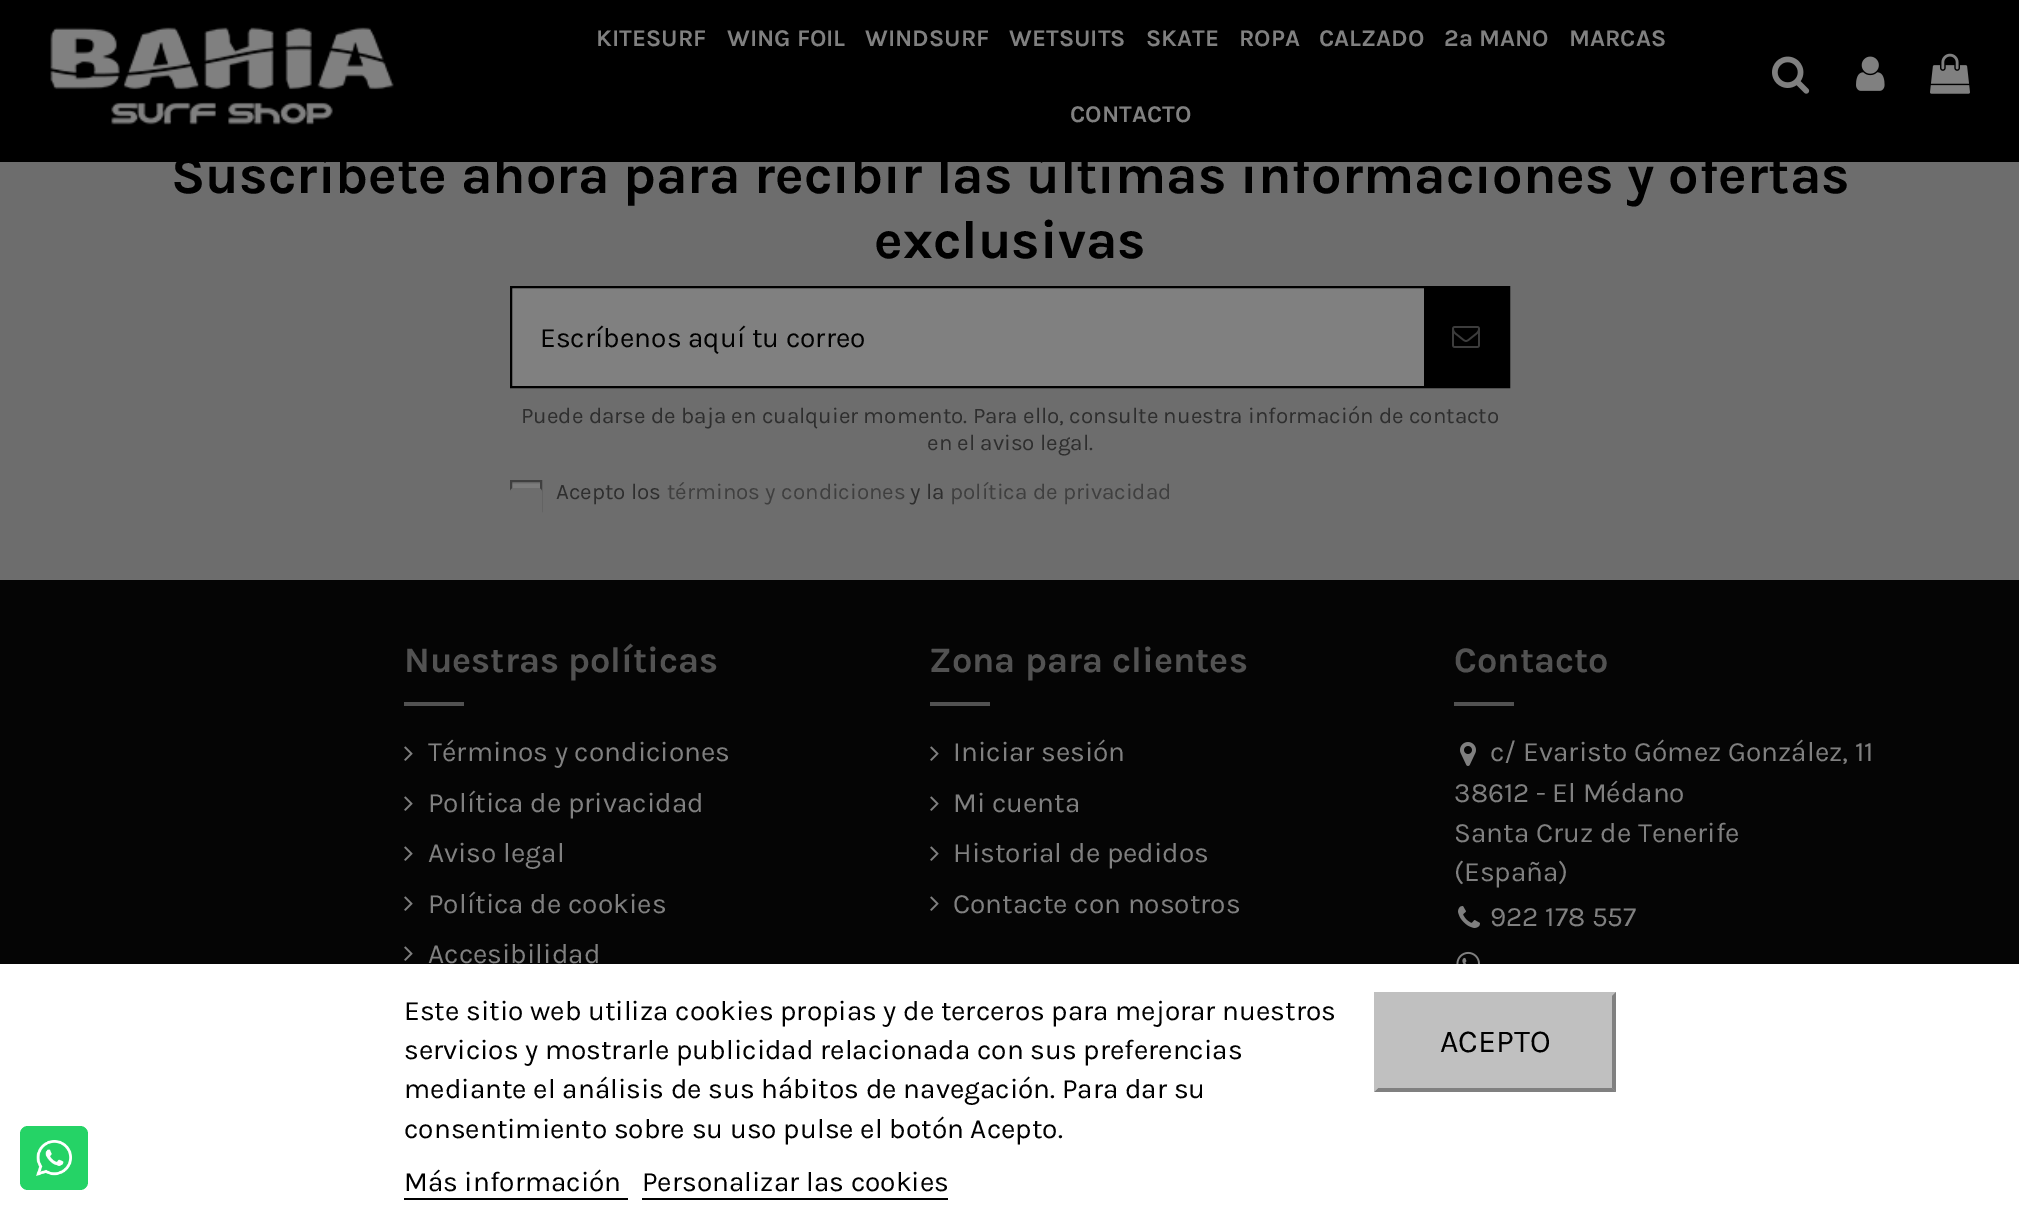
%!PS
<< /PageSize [2019 1229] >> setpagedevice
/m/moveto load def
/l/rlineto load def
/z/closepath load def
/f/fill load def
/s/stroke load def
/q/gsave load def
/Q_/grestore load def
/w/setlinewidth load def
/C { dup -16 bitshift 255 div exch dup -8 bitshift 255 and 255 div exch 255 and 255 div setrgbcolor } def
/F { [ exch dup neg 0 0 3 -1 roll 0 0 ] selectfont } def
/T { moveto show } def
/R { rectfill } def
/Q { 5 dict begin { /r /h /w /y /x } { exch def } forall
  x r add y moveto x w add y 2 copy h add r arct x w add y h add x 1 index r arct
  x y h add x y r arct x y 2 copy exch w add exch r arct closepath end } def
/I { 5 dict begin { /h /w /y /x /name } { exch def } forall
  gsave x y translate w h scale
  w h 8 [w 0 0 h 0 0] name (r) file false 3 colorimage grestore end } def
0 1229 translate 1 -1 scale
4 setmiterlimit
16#050505 C
0 0 2019 1229 R
16#FFFFFF C
0 964 2019 265 R
16#25D366 C
20 1126 68 64 8 Q f
(1.rgb) 36 1140 36 36 I
16#000000 C
0 0 2019 162 R
(2.rgb) 50 27 344 98 I
/Karla-Bold 24 F
16#808080 C
(KITESURF) 596 46 T
(WING FOIL) 727 46 T
(WINDSURF) 865 46 T
(WETSUITS) 1009 46 T
(SKATE) 1146 46 T
(ROPA) 1239 46 T
(CALZADO) 1319 46 T
(2ª MANO) 1444 46 T
(MARCAS) 1569 46 T
(CONTACTO) 1070 122 T
(3.rgb) 1772 56 38 38 I
(4.rgb) 1856 56 29 35 I
(5.rgb) 1930 53 40 41 I
16#6D6D6D C
0 162 2019 418 R
/Karla-Bold 54 F
16#000000 C
(Suscríbete ahora para recibir las últimas informaciones y ofertas) 171 193 T
(exclusivas) 874 258 T
16#808080 C
512 288 912 98 R
16#000000 C
2 w
511 287 998 100 rectstroke
/Karla-Regular 28 F
(Escríbenos aquí tu correo) 540 347 T
1424 288 84 98 R
(6.rgb) 1452 326 28 22 I
/Karla-Regular 22.4 F
16#2E2E2E C
(Puede darse de baja en cualquier momento. Para ello, consulte nuestra información de contacto) 521 423 T
(en el aviso legal.) 927 450 T
16#7C7C7C C
512 484 28 5 R
16#737373 C
512 482 28 2 R
16#3F3F3F C
511 481 30 30 rectstroke
16#2E2E2E C
(Acepto los) 556 499 T
16#3F3F3F C
(términos y condiciones) 667 499 T
16#2E2E2E C
(y la) 910 499 T
16#3F3F3F C
(política de privacidad) 950 499 T
16#6D6D6D C
511 489 30 30 3 Q q f Q_
s
/Karla-Bold 36 F
16#525252 C
(Nuestras políticas) 404 672 T
404 702 60 4 R
(7.rgb) 404 746 9 15 I
/Karla-Regular 28 F
16#808080 C
(Términos y condiciones) 428 761 T
(7.rgb) 404 796 9 15 I
(Política de privacidad) 428 812 T
(7.rgb) 404 846 9 15 I
(Aviso legal) 428 862 T
(7.rgb) 404 896 9 15 I
(Política de cookies) 428 913 T
(7.rgb) 404 946 9 15 I
(Accesibilidad) 428 963 T
/Karla-Bold 36 F
16#525252 C
(Zona para clientes) 929 672 T
930 702 60 4 R
(7.rgb) 930 746 9 15 I
/Karla-Regular 28 F
16#808080 C
(Iniciar sesión) 953 761 T
(7.rgb) 930 796 9 15 I
(Mi cuenta) 953 812 T
(7.rgb) 930 846 9 15 I
(Historial de pedidos) 953 862 T
(7.rgb) 930 896 9 15 I
(Contacte con nosotros) 953 913 T
/Karla-Bold 36 F
16#525252 C
(Contacto) 1454 672 T
1454 702 60 4 R
(8.rgb) 1460 742 16 24 I
/Karla-Regular 28 F
16#808080 C
(c/ Evaristo Gómez González, 11) 1490 761 T
(38612 - El Médano) 1454 802 T
(Santa Cruz de Tenerife) 1454 842 T
(\(España\)) 1454 881 T
(9.rgb) 1458 906 22 22 I
q
1454 898 182 40 rectclip
(922 178 557) 1490 926 T
Q_
(10.rgb) 1456 951 24 13 I
16#000000 C
(Este sitio web utiliza cookies propias y de terceros para mejorar nuestros) 404 1020 T
(servicios y mostrarle publicidad relacionada con sus preferencias) 404 1059 T
(mediante el análisis de sus hábitos de navegación. Para dar su) 404 1098 T
(consentimiento sobre su uso pulse el botón Acepto.) 404 1138 T
(Más información) 404 1191 T
404 1198 224 2 R
(Personalizar las cookies) 642 1191 T
642 1198 306 2 R
16#C0C0C0 C
1374 992 242 100 R
16#808080 C
1616 992 m 0 100 l -4 -4 l 0 -92 l z f
1616 1092 m -242 0 l 4 -4 l 234 0 l z f
16#C0C0C0 C
1374 1092 m 0 -100 l 4 4 l 0 92 l z f
/Karla-Regular 32 F
16#000000 C
(ACEPTO) 1440 1052 T
showpage
